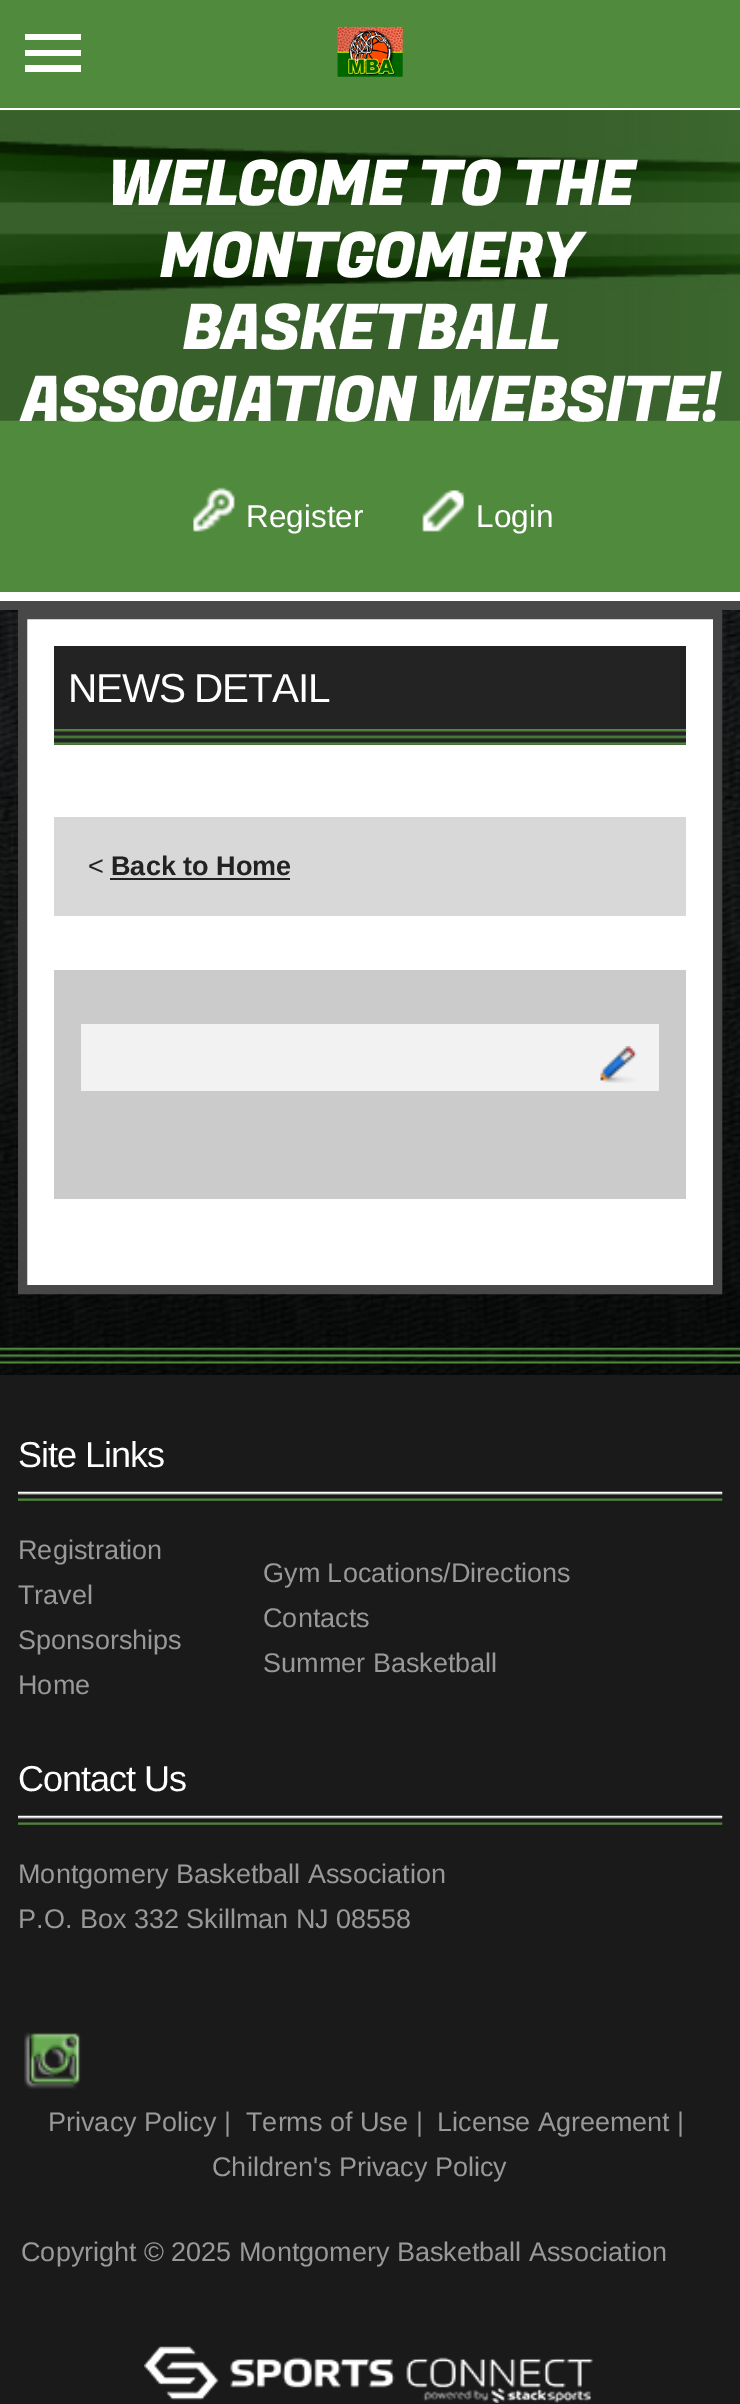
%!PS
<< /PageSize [740 2404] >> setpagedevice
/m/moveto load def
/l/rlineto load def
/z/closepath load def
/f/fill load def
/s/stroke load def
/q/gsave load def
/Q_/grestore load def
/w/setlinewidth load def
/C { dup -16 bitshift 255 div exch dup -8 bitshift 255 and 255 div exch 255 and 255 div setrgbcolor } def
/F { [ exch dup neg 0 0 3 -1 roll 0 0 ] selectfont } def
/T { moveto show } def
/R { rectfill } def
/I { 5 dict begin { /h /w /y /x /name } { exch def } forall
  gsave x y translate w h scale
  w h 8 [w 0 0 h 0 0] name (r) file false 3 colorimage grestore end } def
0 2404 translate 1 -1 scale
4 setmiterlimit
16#FFFFFF C
0 0 740 2404 R
16#508A3D C
0 0 740 108 R
16#FFFFFF C
25 34 m 56 0 l 0 6 l -56 0 l z 25 50 m 56 0 l 0 6 l -56 0 l z 25 65 m 56 0 l 0 7 l -56 0 l z f
(1.rgb) 337 26 66 51 I
(2.rgb) 0 610 740 765 I
16#484848 C
0 601 740 9 R
16#508A3D C
0 110 740 482 R
(3.rgb) 0 110 740 311 I
/FugazOne-Regular 63 F
16#FFFFFF C
107 205 m -1.9 0 (WELCOME TO THE) ashow
159 277 m -1.9 0 (MONTGOMERY) ashow
182 349 m -1.9 0 (BASKETBALL) ashow
21 421 m -1.9 0 (ASSOCIATION WEBSITE!) ashow
(4.rgb) 193 487 42 45 I
/LiberationSans-Regular 31.5 F
(Register) 246 527 T
(5.rgb) 422 490 43 42 I
(Login) 476 527 T
22.5 614.5 m 695 0 l 0 675 l -695 0 l z q f Q_
16#484848 C
9 w
s
16#232323 C
54 646 632 99 R
(6.rgb) 54 729 633 16 I
/LiberationSans-Regular 40.5 F
16#FFFFFF C
68 702 m -1.25 0 (NEWS DETAIL) ashow
16#D8D8D8 C
54 817 632 99 R
/LiberationSans-Regular 27 F
16#222222 C
(<) 88 875 T
/LiberationSans-Bold 27 F
(Back to Home) 111 875 T
110 878 180 2 R
16#CBCBCB C
54 970 632 229 R
16#F2F2F2 C
81 1024 578 67 R
(7.rgb) 600 1046 37 37 I
(8.rgb) 0 1347 740 17 I
16#1A1A1A C
0 1375 740 1029 R
(9.rgb) 18 1491 705 10 I
/LiberationSans-Regular 36 F
16#FFFFFF C
18 1467 m -1 0 (Site Links) ashow
/LiberationSans-Regular 27 F
16#999999 C
(Registration) 18 1559 T
(Travel) 18 1604 T
(Sponsorships) 18 1649 T
(Home) 18 1694 T
(Gym Locations/Directions) 263 1582 T
(Contacts) 263 1627 T
(Summer Basketball) 263 1672 T
(9.rgb) 18 1815 705 10 I
/LiberationSans-Regular 36 F
16#FFFFFF C
18 1791 m -1 0 (Contact Us) ashow
/LiberationSans-Regular 27 F
16#999999 C
(Montgomery Basketball Association) 18 1883 T
(P.O. Box 332 Skillman NJ 08558) 18 1928 T
(10.rgb) 24 2032 58 57 I
(Privacy Policy |) 48 2131 T
(Terms of Use |) 246 2131 T
(License Agreement |) 437 2131 T
(Children's Privacy Policy) 212 2176 T
(Copyright © 2025 Montgomery Basketball Association) 21 2261 T
(11.rgb) 144 2346 449 57 I
showpage
